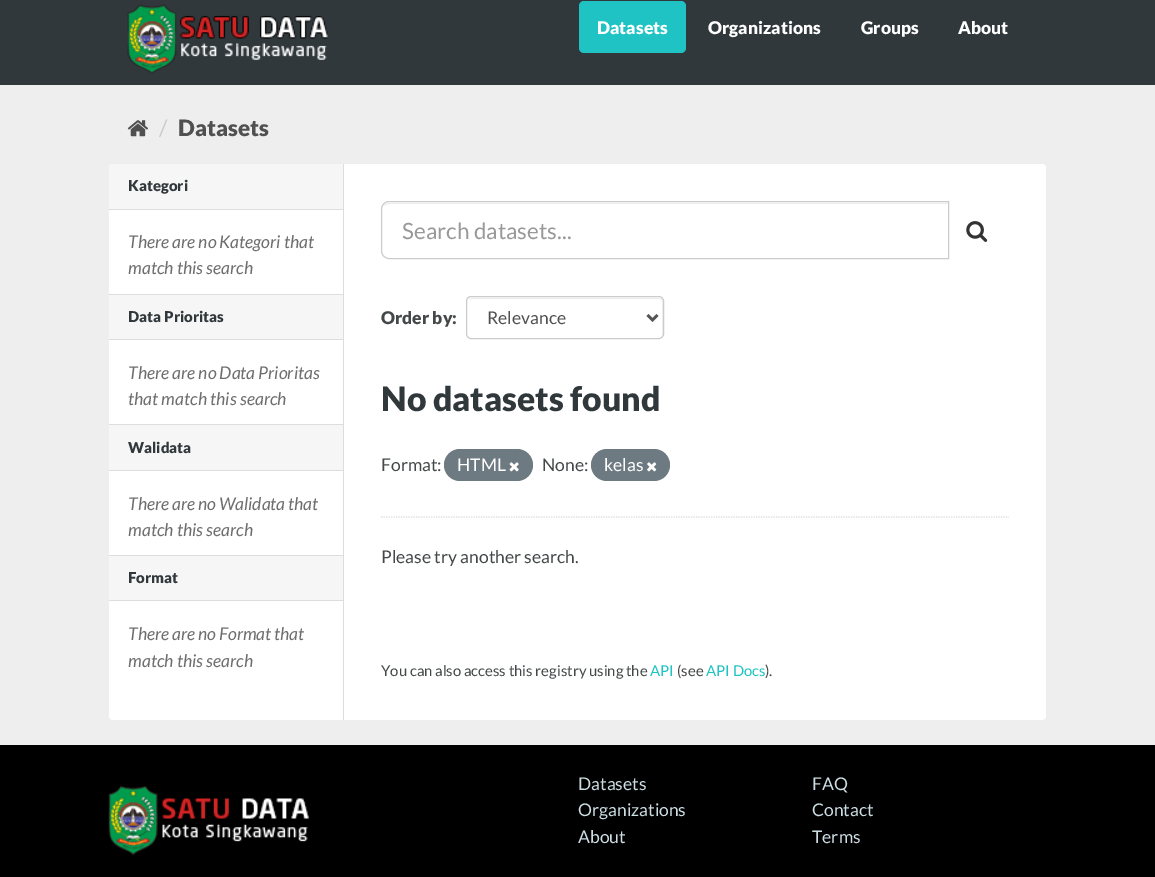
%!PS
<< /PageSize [1155 877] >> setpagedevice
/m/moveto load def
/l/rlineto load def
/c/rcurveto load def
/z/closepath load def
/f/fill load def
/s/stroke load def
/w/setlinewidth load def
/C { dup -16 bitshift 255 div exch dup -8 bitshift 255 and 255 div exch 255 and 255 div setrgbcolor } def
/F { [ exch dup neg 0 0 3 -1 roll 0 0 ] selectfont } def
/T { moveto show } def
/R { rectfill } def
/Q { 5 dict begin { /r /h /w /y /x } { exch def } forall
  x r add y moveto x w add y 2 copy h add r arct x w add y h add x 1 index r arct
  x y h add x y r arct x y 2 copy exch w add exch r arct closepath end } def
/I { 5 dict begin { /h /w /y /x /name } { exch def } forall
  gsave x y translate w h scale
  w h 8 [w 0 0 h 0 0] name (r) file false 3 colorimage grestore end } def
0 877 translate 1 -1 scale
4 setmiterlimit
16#31383C C
0 0 1155 877 R
(1.rgb) 127 4 201 70 I
16#20C3C4 C
579 1 107 52 5 Q f
/Lato-Black 17.5 F
16#FFFFFF C
(Datasets) 597 34 T
(Organizations) 708 34 T
(Groups) 861 34 T
(About) 958 34 T
16#EEEEEE C
0 85 1155 660 R
(2.rgb) 127 120 21 17 I
/Lato-Regular 22.5 F
16#CCCCCC C
(/) 159 136 T
/Lato-Black 22.5 F
16#505050 C
(Datasets) 178 136 T
16#FFFFFF C
109 164 937 556 4 Q f
16#F6F6F6 C
113 164 m 230 0 l 0 46 l -234 0 l 0 -42 l 0 -2 2 -4 4 -4 c z f
16#DDDDDD C
109 209 234 1 R
/Lato-Black 15 F
16#31383C C
(Kategori) 128 191 T
/Lato-Italic 17.5 F
16#6E6E6E C
128 248 m -.25 0 32 (There are no Kategori that) widthshow
(match this search) 128 274 T
16#F6F6F6 C
109 295 234 44 R
16#DDDDDD C
109 294 234 1 R
109 339 234 1 R
/Lato-Black 15 F
16#31383C C
(Data Prioritas) 128 322 T
/Lato-Italic 17.5 F
16#6E6E6E C
128 379 m -.25 0 32 (There are no Data Prioritas) widthshow
(that match this search) 128 405 T
16#F6F6F6 C
109 425 234 45 R
16#DDDDDD C
109 424 234 1 R
109 470 234 1 R
/Lato-Black 15 F
16#31383C C
(Walidata) 128 453 T
/Lato-Italic 17.5 F
16#6E6E6E C
128 510 m -.5 0 32 (There are no Walidata that) widthshow
(match this search) 128 536 T
16#F6F6F6 C
109 556 234 44 R
16#DDDDDD C
109 555 234 1 R
109 600 234 1 R
/Lato-Black 15 F
16#31383C C
(Format) 128 583 T
/Lato-Italic 17.5 F
16#6E6E6E C
128 640 m -.5 0 32 (There are no Format that) widthshow
(match this search) 128 667 T
16#DDDDDD C
343 164 1 556 R
1.2 w
[1.25 1.25] 0 setdash
381 517 m 628 0 l s
16#ECECEC C
389 204 m 559 0 l 0 -1 l -559 0 l -2 0 -4 1 -5 3 c 1 -1 3 -2 5 -2 c z f
16#CCCCCC C
1 w
[] 0 setdash
389 201.5 m 559.5 0 l 0 57 l -559.5 0 l -4 0 -7.5 -3.5 -7.5 -7.5 c 0 -42 l 0 -4 3.5 -7.5 7.5 -7.5 c z s
/Lato-Regular 22.5 F
16#999999 C
(Search datasets...) 402 239 T
(3.rgb) 966 221 22 21 I
/Lato-Black 17.5 F
16#444849 C
(Order by) 381 324 T
(:) 452 324 T
16#ECECEC C
471 299 m 188 0 l 2 0 3 1 3 3 c 0 35 l 0 -1 1 -2 1 -3 c 0 -32 l 0 -2 -2 -4 -4 -4 c -187 0 l -1 0 -3 1 -3 2 c z f
16#CCCCCC C
466.5 296.5 197 42 4.5 Q s
16#555555 C
2.5 w
647.5 315 m 5 5 l 5 -5 l s
/Lato-Regular 17.5 F
16#505050 C
(Relevance) 487 324 T
/Lato-Black 33.75 F
16#31383C C
(No datasets found) 381 411 T
/Lato-Regular 17.5 F
16#444849 C
(Format:) 381 471 T
16#6E7A81 C
444 449 89 32 16 Q f
16#FFFFFF C
(HTML) 457 471 T
(4.rgb) 509 462 10 10 I
16#444849 C
(None:) 542 471 T
16#6E7A81 C
591 449 79 32 16 Q f
16#FFFFFF C
(kelas) 604 471 T
(5.rgb) 647 462 10 10 I
16#444849 C
(Please try another search.) 381 563 T
/Lato-Regular 14.9 F
381 676 m -.25 0 32 (You can also access this registry using the) widthshow
16#20C3C4 C
(API) 650 676 T
16#444849 C
(\(see) 677 676 T
16#20C3C4 C
(API Docs) 706 676 T
16#444849 C
(\).) 765 676 T
16#000000 C
0 745 1155 132 R
(6.rgb) 108 786 201 69 I
/Lato-Regular 17.5 F
16#CCDEE3 C
(Datasets) 578 790 T
(Organizations) 578 816 T
(About) 578 843 T
(FAQ) 812 790 T
(Contact) 812 816 T
(Terms) 812 843 T
showpage
